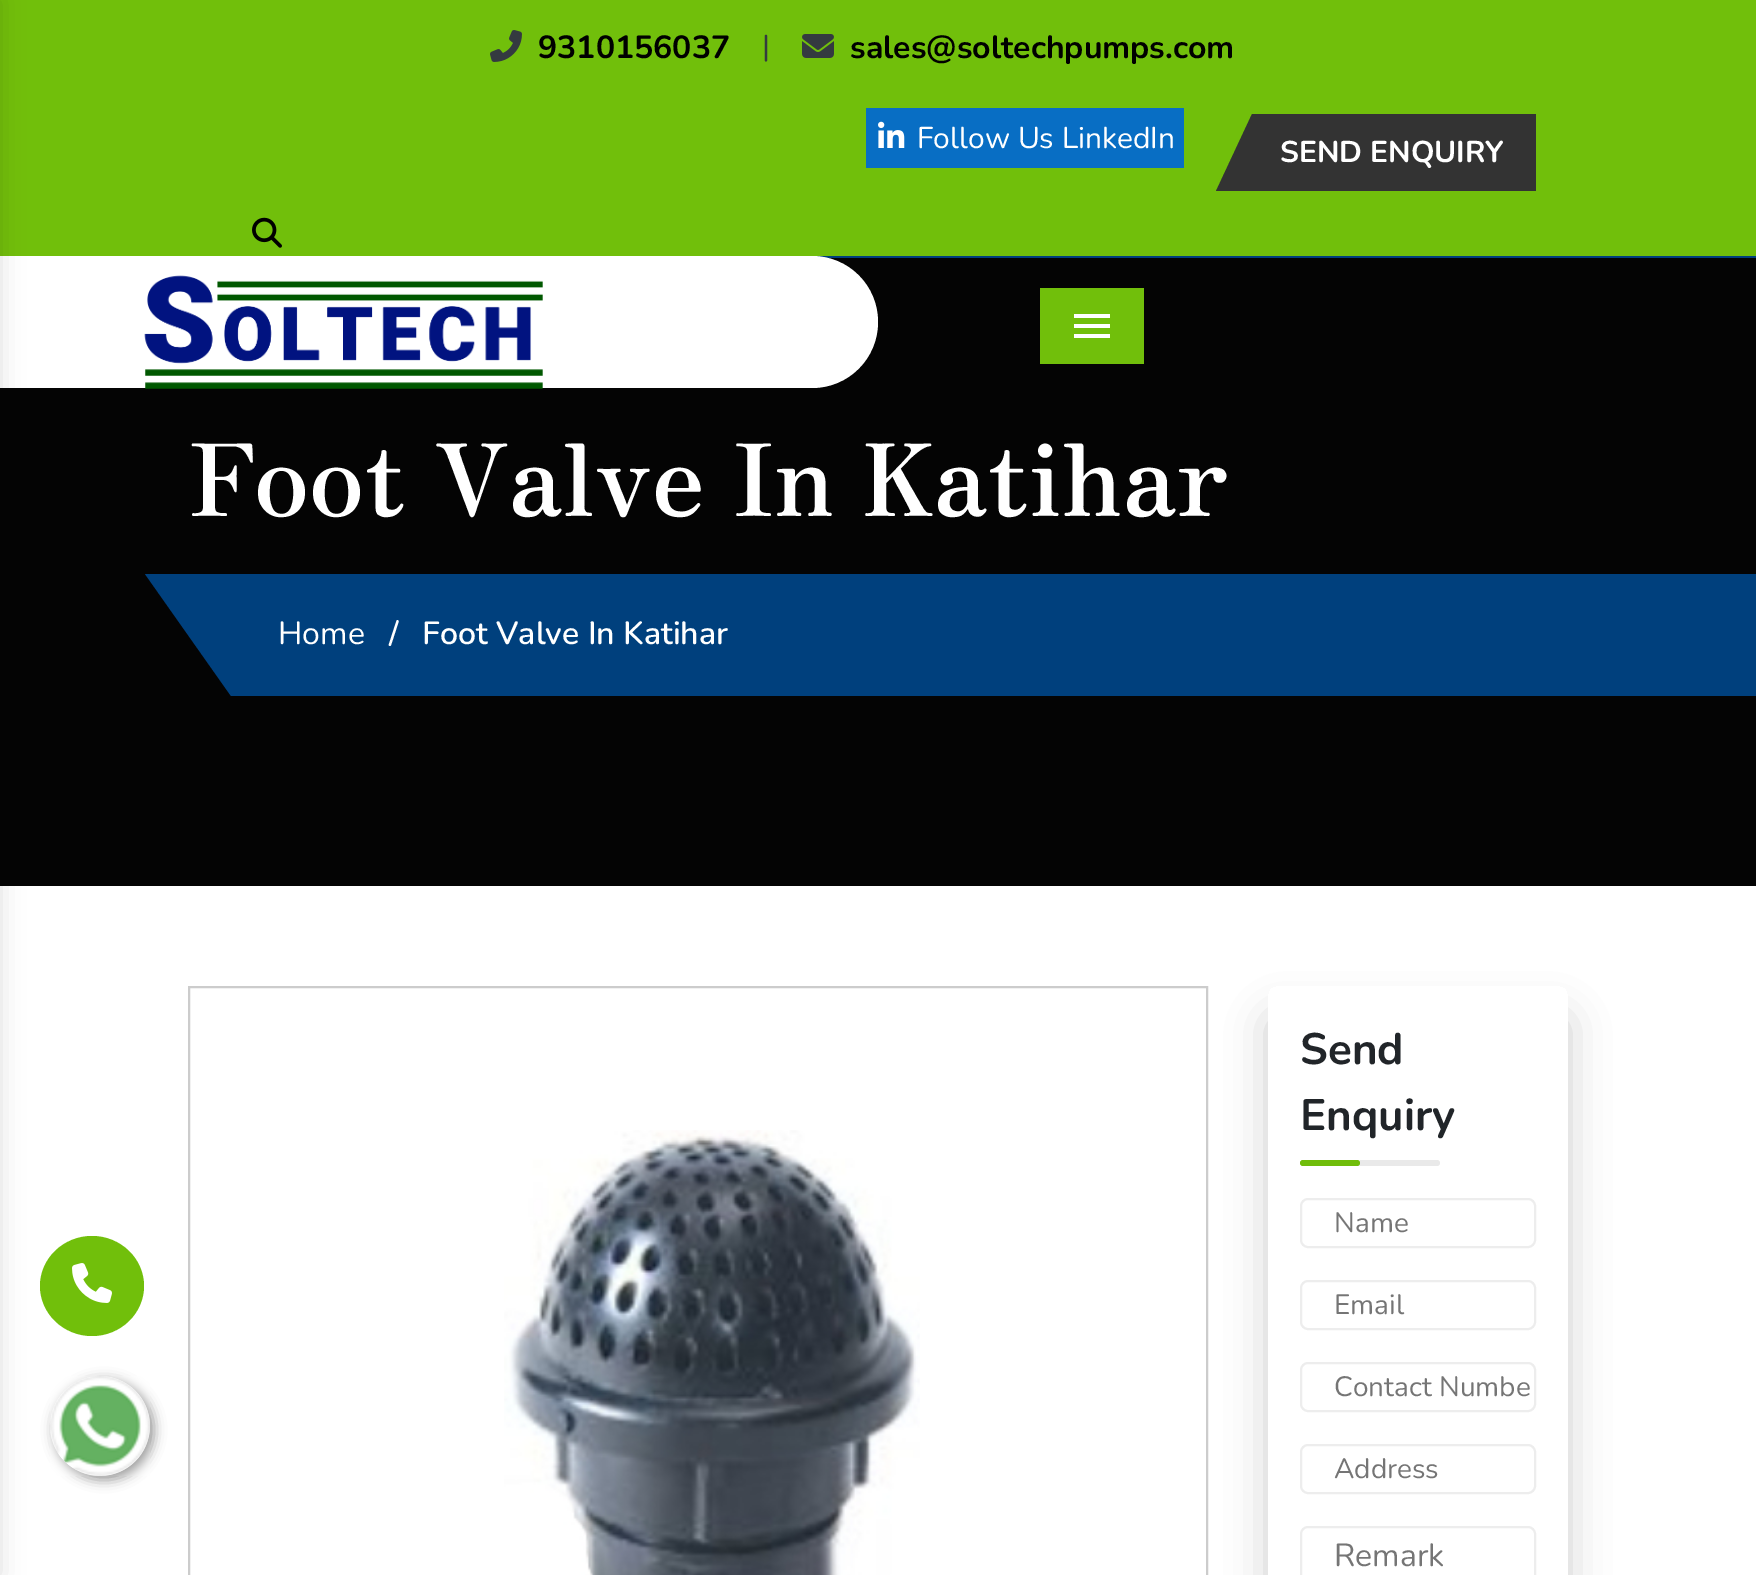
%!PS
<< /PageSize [1756 1575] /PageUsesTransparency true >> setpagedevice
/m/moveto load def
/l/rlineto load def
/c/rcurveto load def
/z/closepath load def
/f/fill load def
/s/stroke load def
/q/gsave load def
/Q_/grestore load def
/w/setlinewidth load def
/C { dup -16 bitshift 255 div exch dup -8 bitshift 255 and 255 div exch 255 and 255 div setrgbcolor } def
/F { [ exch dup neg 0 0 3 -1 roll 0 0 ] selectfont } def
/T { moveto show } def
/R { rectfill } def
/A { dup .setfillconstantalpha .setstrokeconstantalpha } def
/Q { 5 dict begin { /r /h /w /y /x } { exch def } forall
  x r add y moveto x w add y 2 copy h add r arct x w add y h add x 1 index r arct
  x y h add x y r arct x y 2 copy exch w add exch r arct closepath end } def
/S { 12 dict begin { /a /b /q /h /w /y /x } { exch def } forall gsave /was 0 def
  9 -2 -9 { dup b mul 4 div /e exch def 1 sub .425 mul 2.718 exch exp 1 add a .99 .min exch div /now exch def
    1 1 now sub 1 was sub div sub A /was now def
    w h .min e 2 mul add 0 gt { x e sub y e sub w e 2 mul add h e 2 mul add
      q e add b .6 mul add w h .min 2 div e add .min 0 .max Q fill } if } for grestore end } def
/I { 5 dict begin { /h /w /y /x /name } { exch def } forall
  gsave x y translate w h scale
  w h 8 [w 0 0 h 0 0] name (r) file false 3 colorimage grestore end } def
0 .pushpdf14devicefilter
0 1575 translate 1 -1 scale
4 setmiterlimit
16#FFFFFF C
0 0 1756 1575 R
16#71BF0B C
0 0 1756 256 R
16#00407D C
813 256 943 2 R
16#040404 C
0 258 1756 628 R
16#FFFFFF C
0 256 m 812 0 l 36.5 0 66 29.5 66 66 c 0 36.5 -29.5 66 -66 66 c -812 0 l z f
16#000000 C
-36 0 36 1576 0 12 .14 S
16#71BF0B C
92 1236 m 28.5 0 52 22.5 52 50 c 0 27.5 -23.5 50 -52 50 c -28.5 0 -52 -22.5 -52 -50 c 0 -27.5 23.5 -50 52 -50 c z f
(1.rgb) 72 1263 40 40 I
(2.rgb) 490 30 32 32 I
/Nunito-Bold 32 F
16#000000 C
(9310156037) 538 58 T
/Nunito-Regular 30 F
16#343A40 C
(|) 762 56 T
(3.rgb) 802 34 32 24 I
/Nunito-Bold 32 F
16#000000 C
(sales@soltechpumps.com) 850 58 T
16#086EC4 C
866 108 318 60 R
(4.rgb) 878 121 27 27 I
/Nunito-Regular 30 F
16#FFFFFF C
(Follow Us LinkedIn) 917 148 T
16#333333 C
1252 114 m -36 77 l 320 0 l 0 -77 l z f
/Nunito-Bold 30 F
16#FFFFFF C
(SEND ENQUIRY) 1280 162 T
(5.rgb) 252 217 30 31 I
(6.rgb) 144 275 399 114 I
16#71BF0B C
1040 288 104 76 R
16#FFFFFF C
1074 338 m 36 0 l 0 -4 l -36 0 l z 1074 328 m 36 0 l 0 -4 l -36 0 l z 1074 314 m 0 4 l 36 0 l 0 -4 l z f
/ZenAntique-Regular 100 F
(Foot Valve In Katihar) 188 516 T
16#00407D C
145 574 m 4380 0 l 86 122 l -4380 0 l z f
/Nunito-Regular 32 F
16#FFFFFF C
(Home) 278 644 T
/Nunito-SemiBold 32 F
(/) 389 644 T
(Foot Valve In Katihar) 422 644 T
16#CCCCCC C
2 w
189 987 1018 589 rectstroke
(7.rgb) 504 1130 416 445 I
q
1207 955 m 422 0 l 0 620 l -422 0 l z 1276 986 m 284 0 l 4.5 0 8 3.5 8 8 c 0 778 l 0 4.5 -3.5 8 -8 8 c -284 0 l -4.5 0 -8 -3.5 -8 -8 c 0 -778 l 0 -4.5 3.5 -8 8 -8 c z eoclip newpath
1268 1016 300 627 8 20 1 S
Q_
/Nunito-Bold 44 F
16#212529 C
(Send) 1300 1064 T
(Enquiry) 1300 1130 T
16#E9E9E9 C
1300 1160 140 6 3 Q f
16#70BD0B C
1300 1160 60 6 3 Q f
16#EDEDED C
1301 1199 234 48 7 Q s
/Nunito-Regular 28 F
16#757575 C
(Name) 1334 1232 T
16#EDEDED C
1301 1281 234 48 7 Q s
16#757575 C
(Email) 1334 1314 T
16#EDEDED C
1301 1363 234 48 7 Q s
16#757575 C
(Contact Numbe) 1334 1396 T
16#EDEDED C
1301 1445 234 48 7 Q s
16#757575 C
(Address) 1334 1478 T
16#EDEDED C
1301 1527 234 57 7 Q s
/Nunito-Regular 32 F
16#757575 C
(Remark) 1334 1566 T
q
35 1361 m 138 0 l 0 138 l -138 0 l z 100 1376 m 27.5 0 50 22.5 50 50 c 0 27.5 -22.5 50 -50 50 c -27.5 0 -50 -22.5 -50 -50 c 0 -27.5 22.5 -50 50 -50 c z eoclip newpath
16#000000 C
54 1380 100 100 50 6 .4 S
Q_
(8.rgb) 50 1376 100 100 I
.poppdf14devicefilter showpage
